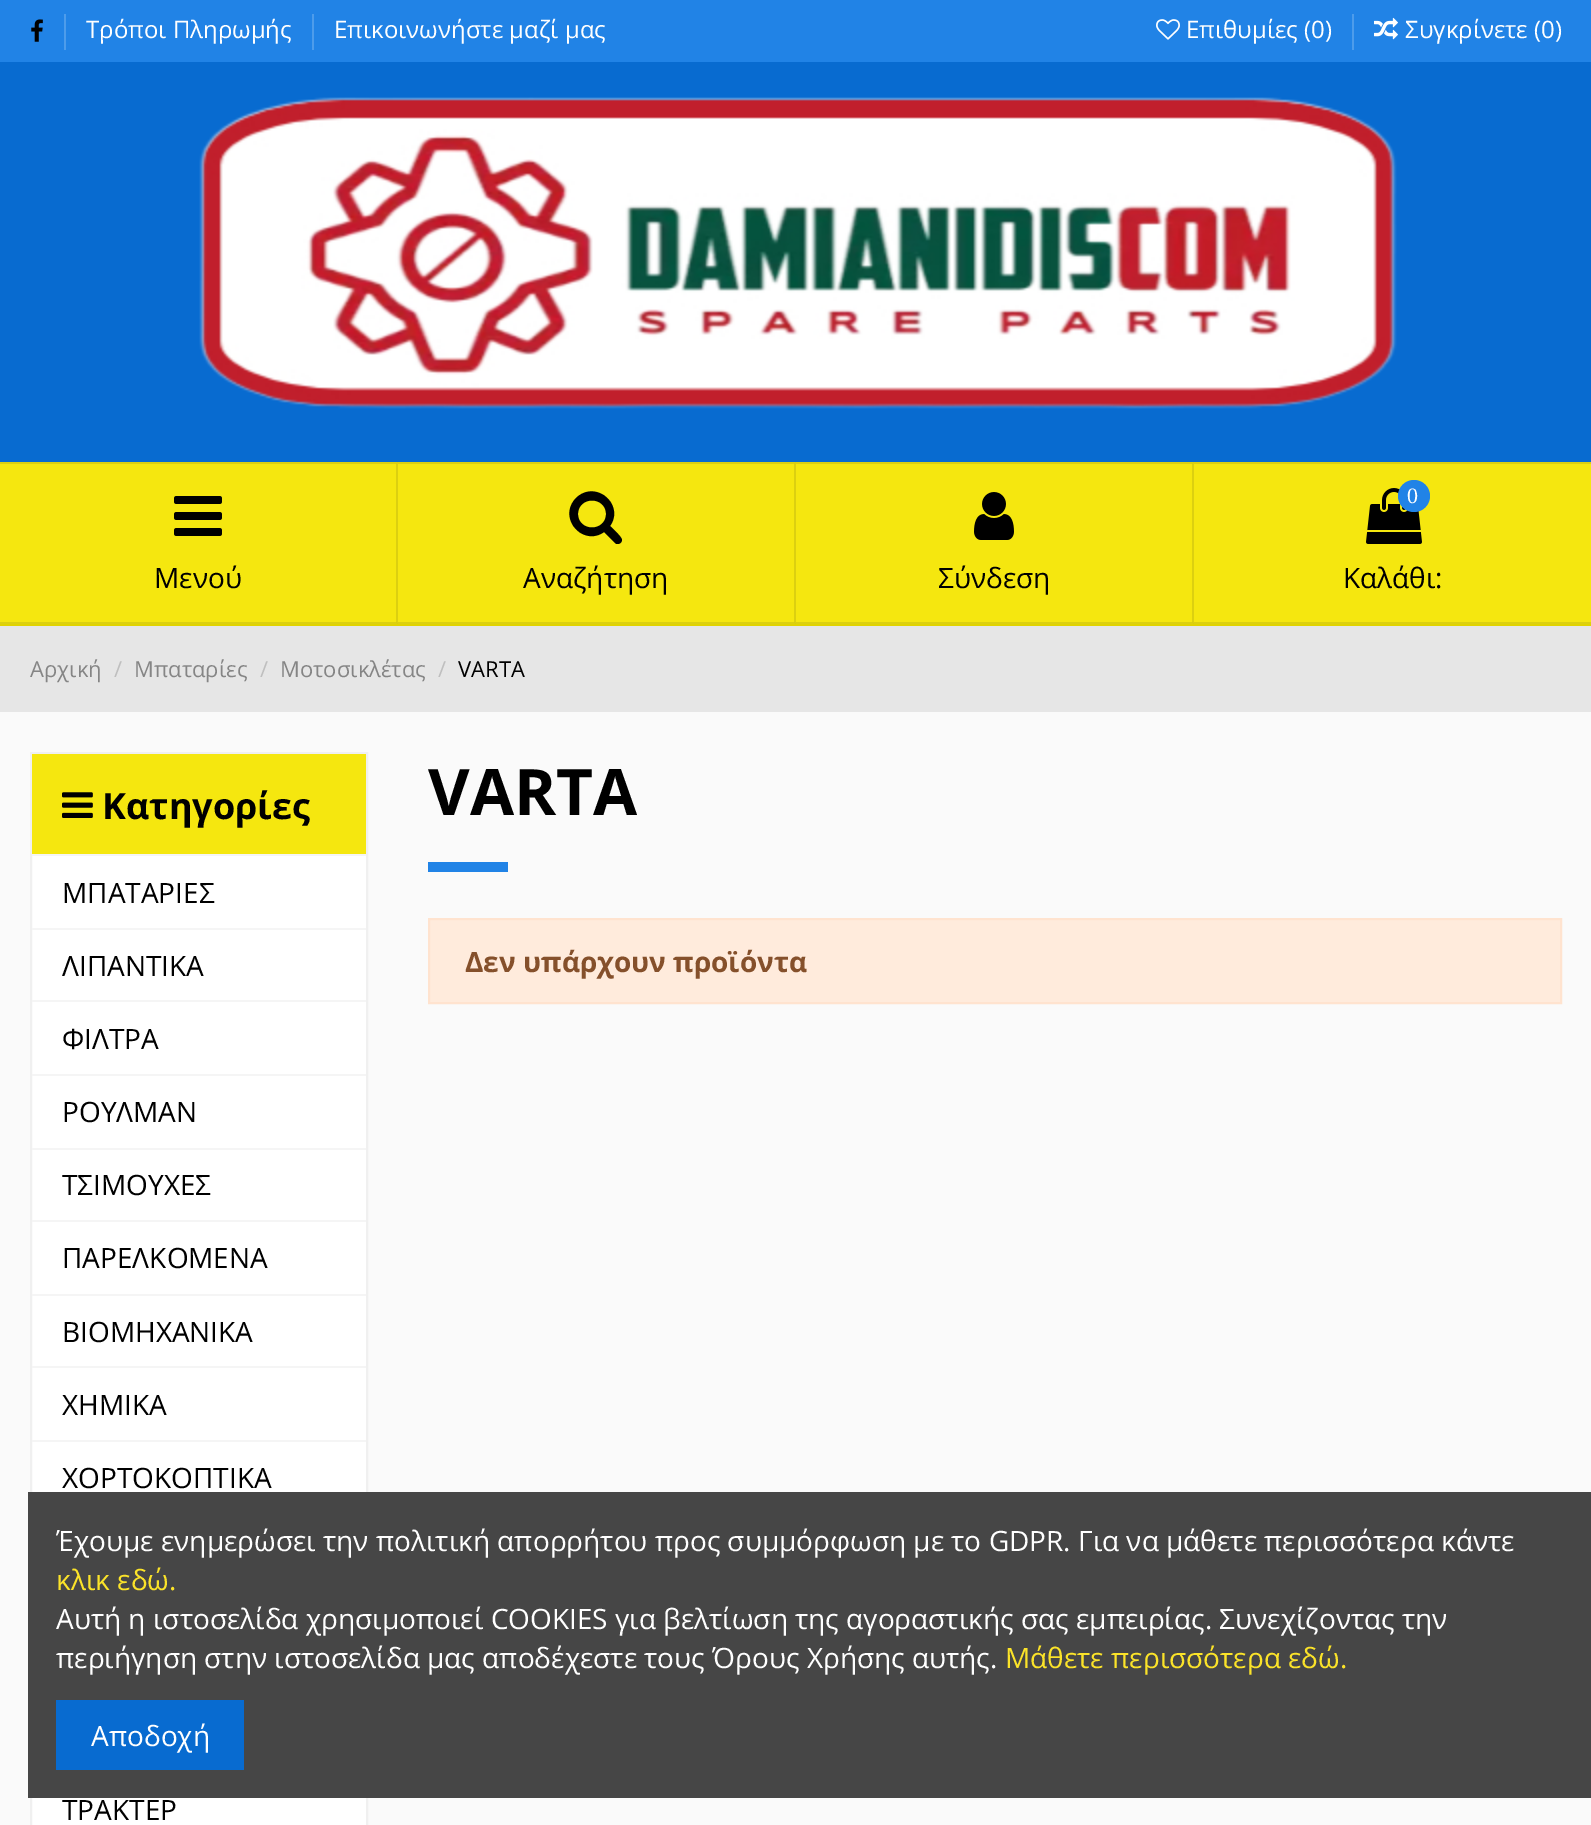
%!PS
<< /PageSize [1591 1825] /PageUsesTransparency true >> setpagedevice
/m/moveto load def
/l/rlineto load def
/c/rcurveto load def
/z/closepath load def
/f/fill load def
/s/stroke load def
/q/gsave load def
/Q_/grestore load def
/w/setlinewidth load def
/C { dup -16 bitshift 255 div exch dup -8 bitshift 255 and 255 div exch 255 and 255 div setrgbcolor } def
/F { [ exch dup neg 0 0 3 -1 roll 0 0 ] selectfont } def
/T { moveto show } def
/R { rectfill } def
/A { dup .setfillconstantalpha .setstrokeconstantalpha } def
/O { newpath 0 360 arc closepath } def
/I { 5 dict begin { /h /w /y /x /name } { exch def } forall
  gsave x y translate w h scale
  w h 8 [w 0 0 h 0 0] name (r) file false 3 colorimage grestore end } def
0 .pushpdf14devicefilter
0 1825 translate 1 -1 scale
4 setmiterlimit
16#FAFAFA C
0 0 1591 1825 R
16#086BD0 C
0 62 1591 400 R
16#2183E6 C
0 0 1591 62 R
(1.rgb) 31 19 12 23 I
16#4D9CEB C
64 14 2 36 R
/OpenSans-Regular 24 F
16#FFFFFF C
(Τρόποι Πληρωμής) 86 38 T
16#4D9CEB C
312 14 2 36 R
16#FFFFFF C
(Επικοινωνήστε μαζί μας) 334 38 T
(2.rgb) 1156 19 24 21 I
(Επιθυμίες \(0\)) 1186 38 T
16#4D9CEB C
1352 14 2 36 R
(3.rgb) 1374 17 24 23 I
16#FFFFFF C
(Συγκρίνετε \(0\)) 1405 38 T
16#E0D300 C
0 624 1591 2 R
(4.rgb) 199 97 1198 312 I
16#F5E70F C
0 462 1591 162 R
16#DCD010 C
0 462 m 398 0 l -2 2 l -396 0 l z f
0.11 A
16#151515 C
398 462 m 0 162 l -2 -2 l 0 -158 l z f
398 624 m -398 0 l 0 -2 l 396 0 l z f
1 A
(5.rgb) 174 496 48 40 I
/OpenSans-Regular 28 F
16#000000 C
(Μενού) 154 588 T
16#DCD010 C
398 462 m 398 0 l -2 2 l -396 0 l z f
0.11 A
16#151515 C
796 462 m 0 162 l -2 -2 l 0 -158 l z f
796 624 m -398 0 l 0 -2 l 396 0 l z f
1 A
16#000000 C
606 514 m 0 18 -28 18 -28 0 c 0 -18 28 -18 28 0 c z 622 540 m 0 -3 -9 -11 -12 -14 c 15 -21 -14 -47 -34 -28 c -19 20 7 49 28 34 c 11 11 l 1 1 2 1 3 1 c 2 0 4 -2 4 -4 c z f
(Αναζήτηση) 523 588 T
16#DCD010 C
796 462 m 398 0 l -2 2 l -396 0 l z f
0.11 A
16#151515 C
1194 462 m 0 162 l -2 -2 l 0 -158 l z f
1194 624 m -398 0 l 0 -2 l 396 0 l z f
1 A
(6.rgb) 974 492 40 48 I
16#000000 C
(Σύνδεση) 938 588 T
16#DCD010 C
1194 462 397 2 R
1194 622 397 2 R
(7.rgb) 1366 488 56 56 I
16#2183E6 C
1414 496 16 O f
/LiberationSerif-Regular 22 F
16#FFFFFF C
(0) 1407 503 T
/OpenSans-Regular 28 F
16#000000 C
(Καλάθι:) 1343 588 T
16#E6E6E6 C
0 626 1591 86 R
/OpenSans-Regular 22 F
16#858585 C
(Αρχική) 30 677 T
16#BFBFBF C
(/) 114 677 T
16#858585 C
(Μπαταρίες) 134 677 T
16#BFBFBF C
(/) 260 677 T
16#858585 C
(Μοτοσικλέτας) 280 677 T
16#BFBFBF C
(/) 438 677 T
16#000000 C
(VARTA) 458 677 T
16#FFFFFF C
32 856 334 969 R
16#F0F0F0 C
2 w
31 753 336 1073 rectstroke
16#F5E70F C
32 754 334 100 R
(8.rgb) 62 792 31 26 I
/OpenSans-Bold 36 F
16#000000 C
(Κατηγορίες) 102 819 T
16#F5F5F5 C
32 854 334 2 R
/OpenSans-Regular 28 F
16#000000 C
(ΜΠΑΤΑΡΙΕΣ) 62 903 T
16#F5F5F5 C
32 928 334 2 R
16#000000 C
(ΛΙΠΑΝΤΙΚΑ) 62 976 T
16#F5F5F5 C
32 1000 334 2 R
16#000000 C
(ΦΙΛΤΡΑ) 62 1049 T
16#F5F5F5 C
32 1074 334 2 R
16#000000 C
(ΡΟΥΛΜΑΝ) 62 1122 T
16#F5F5F5 C
32 1148 334 2 R
16#000000 C
(ΤΣΙΜΟΥΧΕΣ) 62 1195 T
16#F5F5F5 C
32 1220 334 2 R
16#000000 C
(ΠΑΡΕΛΚΟΜΕΝΑ) 62 1268 T
16#F5F5F5 C
32 1294 334 2 R
16#000000 C
(ΒΙΟΜΗΧΑΝΙΚΑ) 62 1342 T
16#F5F5F5 C
32 1366 334 2 R
16#000000 C
(ΧΗΜΙΚΑ) 62 1415 T
16#F5F5F5 C
32 1440 334 2 R
16#000000 C
(ΧΟΡΤΟΚΟΠΤΙΚΑ) 62 1488 T
(ΤΡΑΚΤΕΡ) 62 1820 T
/OpenSans-Bold 64 F
(VARTA) 428 815 T
16#2183E6 C
428 862 80 10 R
16#FFEBDC C
429 919 m 1132 0 l 0 84 l -1132 0 l z q f Q_
16#FFE3CF C
s
/OpenSans-Bold 28 F
16#85502B C
(Δεν υπάρχουν προϊόντα) 465 972 T
16#464646 C
28 1492 1563 306 R
/OpenSans-Regular 28 F
16#FFFFFF C
(Έχουμε ενημερώσει την πολιτική απορρήτου προς συμμόρφωση με το GDPR. Για να μάθετε περισσότερα κάντε) 56 1551 T
16#FBE329 C
(κλικ εδώ.) 56 1590 T
16#FFFFFF C
(Αυτή η ιστοσελίδα χρησιμοποιεί COOKIES για βελτίωση της αγοραστικής σας εμπειρίας. Συνεχίζοντας την) 56 1629 T
(περιήγηση στην ιστοσελίδα μας αποδέχεστε τους Όρους Χρήσης αυτής.) 56 1668 T
16#FBE329 C
(Μάθετε περισσότερα εδώ.) 1005 1668 T
16#086BD0 C
56 1700 188 70 R
16#FFFFFF C
(Αποδοχή) 91 1746 T
.poppdf14devicefilter showpage
